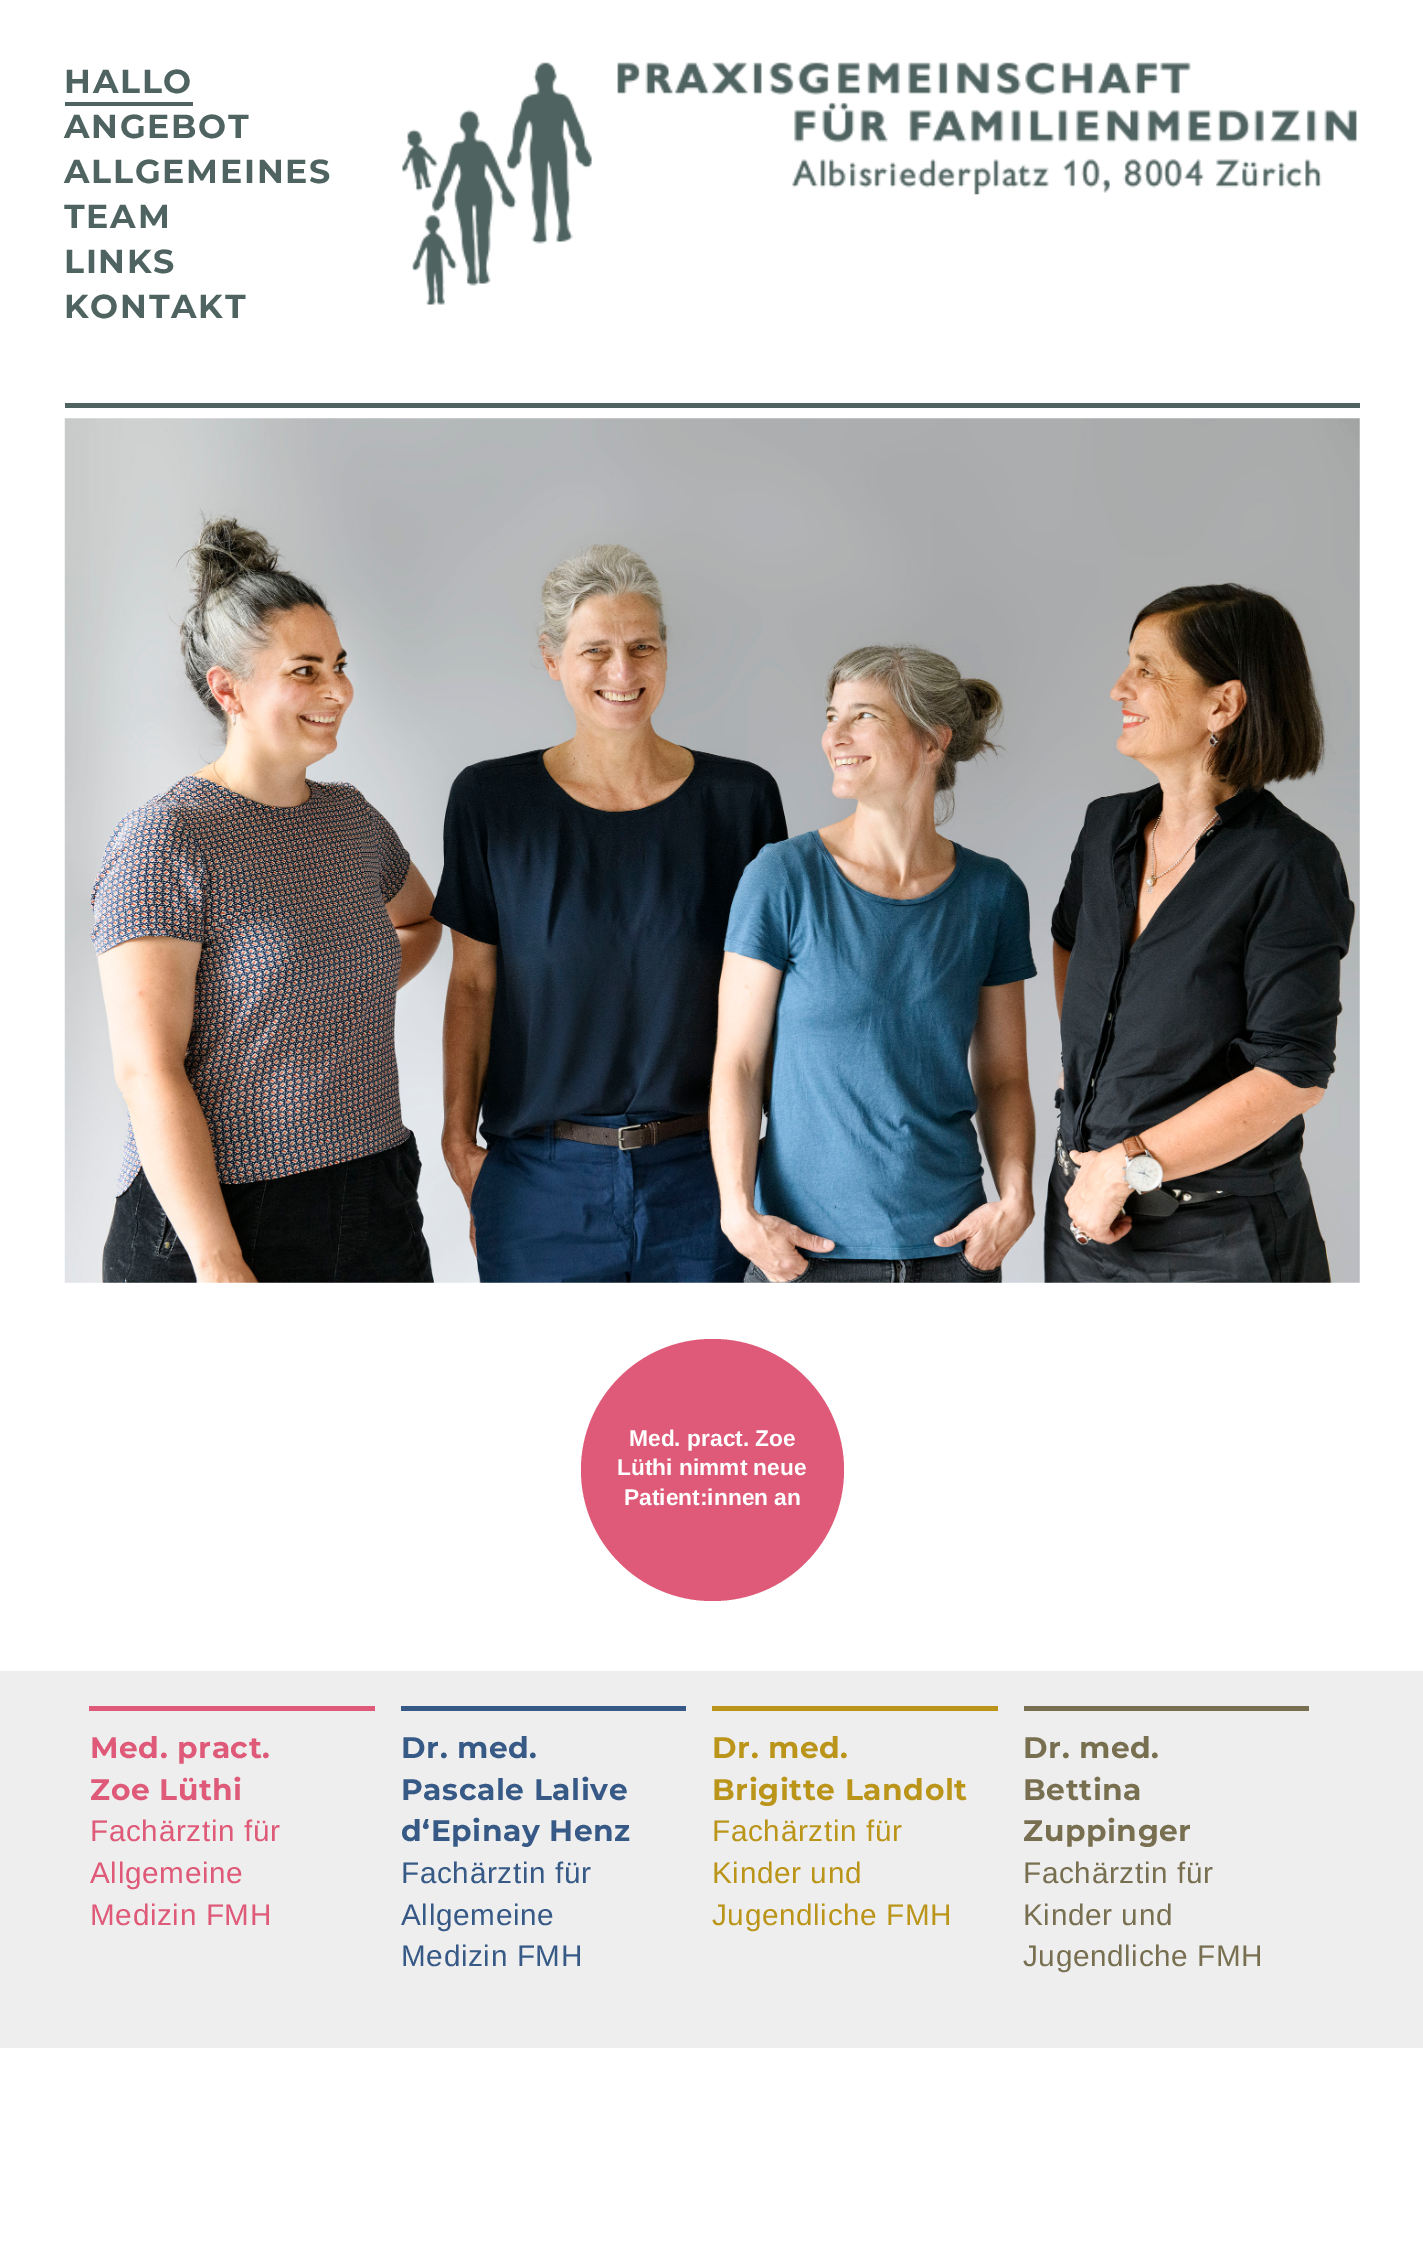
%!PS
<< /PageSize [1423 2260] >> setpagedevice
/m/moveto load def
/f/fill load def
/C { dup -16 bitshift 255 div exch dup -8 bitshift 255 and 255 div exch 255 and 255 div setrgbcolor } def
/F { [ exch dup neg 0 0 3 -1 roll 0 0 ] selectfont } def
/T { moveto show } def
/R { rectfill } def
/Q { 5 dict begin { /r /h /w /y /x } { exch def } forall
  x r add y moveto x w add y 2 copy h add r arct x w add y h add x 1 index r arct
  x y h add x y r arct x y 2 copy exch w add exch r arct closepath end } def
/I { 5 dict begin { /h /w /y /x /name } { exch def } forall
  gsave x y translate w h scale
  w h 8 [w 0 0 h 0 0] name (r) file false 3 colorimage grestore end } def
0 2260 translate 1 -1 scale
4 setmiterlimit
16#FFFFFF C
0 0 1423 2260 R
16#4F6461 C
65 403 1295 5 R
/Montserrat-Bold 33.25 F
64 93 m 1.75 0 (HALLO) ashow
65 102 128 4 R
64 138 m 1.75 0 (ANGEBOT) ashow
64 183 m 1.75 0 (ALLGEMEINES) ashow
64 228 m 1.75 0 (TEAM) ashow
64 273 m 1.75 0 (LINKS) ashow
64 318 m 1.75 0 (KONTAKT) ashow
(1.rgb) 402 62 190 243 I
(2.rgb) 617 62 740 133 I
(3.rgb) 64 418 1296 865 I
16#DF5978 C
581 1339 263 262 131 Q f
/LiberationSans-Bold 22.75 F
16#FFFFFF C
(Med. pract. Zoe) 629 1446 T
(Lüthi nimmt neue) 617 1475 T
(Patient:innen an) 624 1505 T
16#EEEEEE C
0 1671 1423 377 R
16#DF5978 C
89 1706 286 5 R
/Montserrat-Bold 29.75 F
90 1758 m .6 0 (Med. pract.) ashow
90 1800 m .6 0 (Zoe Lüthi) ashow
/LiberationSans-Regular 29.75 F
90 1841 m .6 0 (Fachärztin für) ashow
90 1883 m .6 0 (Allgemeine) ashow
90 1925 m .6 0 (Medizin FMH) ashow
16#365986 C
401 1706 285 5 R
/Montserrat-Bold 29.75 F
401 1758 m .6 0 (Dr. med.) ashow
401 1800 m .6 0 (Pascale Lalive) ashow
401 1841 m .6 0 (d‘Epinay Henz) ashow
/LiberationSans-Regular 29.75 F
401 1883 m .6 0 (Fachärztin für) ashow
401 1925 m .6 0 (Allgemeine) ashow
401 1966 m .6 0 (Medizin FMH) ashow
16#BA951A C
712 1706 286 5 R
/Montserrat-Bold 29.75 F
712 1758 m .6 0 (Dr. med.) ashow
712 1800 m .6 0 (Brigitte Landolt) ashow
/LiberationSans-Regular 29.75 F
712 1841 m .6 0 (Fachärztin für) ashow
712 1883 m .6 0 (Kinder und) ashow
712 1925 m .6 0 (Jugendliche FMH) ashow
16#786F51 C
1024 1706 285 5 R
/Montserrat-Bold 29.75 F
1023 1758 m .6 0 (Dr. med.) ashow
1023 1800 m .6 0 (Bettina) ashow
1023 1841 m .6 0 (Zuppinger) ashow
/LiberationSans-Regular 29.75 F
1023 1883 m .6 0 (Fachärztin für) ashow
1023 1925 m .6 0 (Kinder und) ashow
1023 1966 m .6 0 (Jugendliche FMH) ashow
showpage
